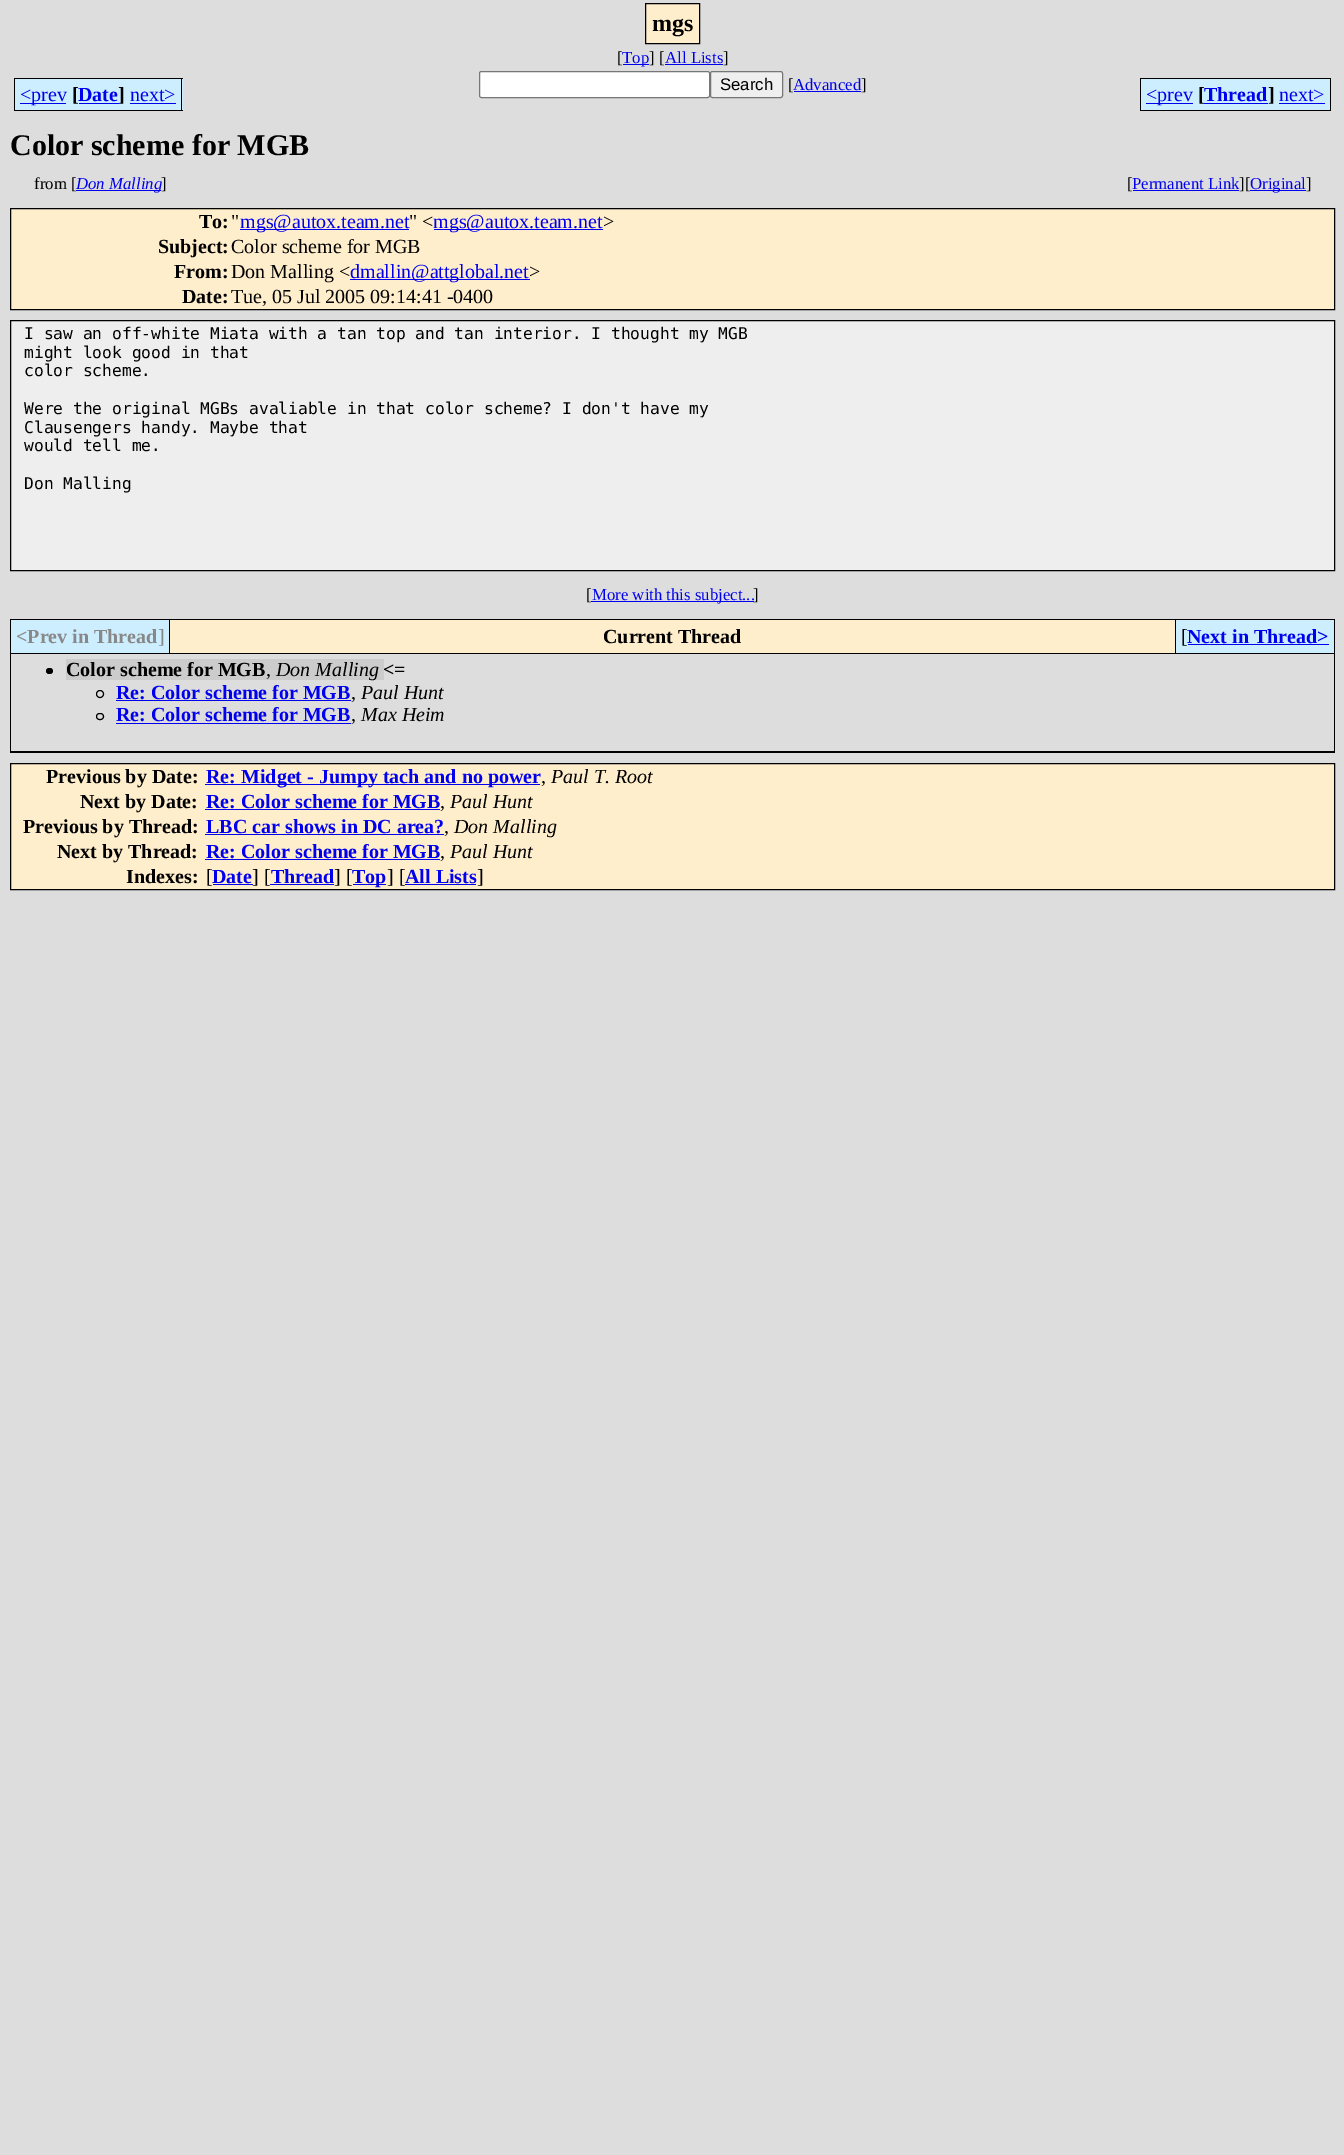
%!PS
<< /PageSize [1344 2155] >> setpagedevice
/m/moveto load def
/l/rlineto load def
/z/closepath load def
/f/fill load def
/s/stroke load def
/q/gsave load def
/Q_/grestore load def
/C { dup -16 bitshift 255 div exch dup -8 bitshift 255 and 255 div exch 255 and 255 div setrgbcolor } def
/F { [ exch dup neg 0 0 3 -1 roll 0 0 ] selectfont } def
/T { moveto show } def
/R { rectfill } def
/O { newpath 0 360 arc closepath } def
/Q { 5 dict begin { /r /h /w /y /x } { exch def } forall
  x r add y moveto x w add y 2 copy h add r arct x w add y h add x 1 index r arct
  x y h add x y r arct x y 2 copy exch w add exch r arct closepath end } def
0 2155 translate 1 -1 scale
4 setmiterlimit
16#DDDDDD C
0 0 1344 2155 R
16#FFEECC C
645.5 3.5 m 54 0 l 0 40 l -54 0 l z q f Q_
16#000000 C
s
/LiberationSerif-Bold 24 F
(mgs) 652 31 T
/LiberationSerif-Regular 16.75 F
([) 617 63 T
16#0000EE C
623 64 26 1 R
(Top) 622 63 T
16#000000 C
(] [) 649 63 T
16#0000EE C
(All Lists) 665 63 T
16#000000 C
(]) 723 63 T
16#0000EE C
665 64 58 1 R
16#FFFFFF C
479.5 71.5 230 26 2 Q q f Q_
16#767676 C
s
16#EFEFEF C
710.5 71.5 72 26 2 Q q f Q_
16#767676 C
s
/LiberationSans-Regular 16.75 F
16#000000 C
(Search) 720 90 T
/LiberationSerif-Regular 16.75 F
([) 788 90 T
16#0000EE C
(Advanced) 793 90 T
16#000000 C
(]) 861 90 T
16#0000EE C
794 91 67 1 R
16#CCEEFF C
15 79 51 31 R
16#0000EE C
20 103 46 1 R
16#CCEEFF C
66 78 13 33 R
/LiberationSerif-Regular 20 F
16#0000EE C
(<prev) 20 101 T
16#000000 C
14 78 52 1 R
14 110 52 1 R
14 78 1 33 R
66 110 53 1 R
/LiberationSerif-Bold 20 F
([) 72 101 T
16#CCEEFF C
79 79 40 31 R
16#0000EE C
(Date) 78 101 T
16#000000 C
66 78 53 1 R
16#CCEEFF C
119 78 11 33 R
16#000000 C
119 78 64 1 R
(]) 118 101 T
119 110 11 1 R
16#0000EE C
79 103 40 1 R
16#CCEEFF C
130 79 53 31 R
/LiberationSerif-Regular 20 F
16#0000EE C
(next>) 130 101 T
16#000000 C
181 78 1 33 R
130 110 53 1 R
16#0000EE C
130 103 46 1 R
16#CCEEFF C
1141 79 52 31 R
16#0000EE C
1146 103 47 1 R
(<prev) 1146 101 T
16#000000 C
1140 78 53 1 R
1140 110 53 1 R
1140 78 1 33 R
16#CCEEFF C
1193 78 11 33 R
16#000000 C
1193 110 75 1 R
/LiberationSerif-Bold 20 F
([) 1198 101 T
16#CCEEFF C
1204 79 64 31 R
16#0000EE C
1204 103 64 1 R
(Thread) 1204 101 T
16#000000 C
1193 78 75 1 R
16#CCEEFF C
1268 78 11 33 R
16#000000 C
1268 78 63 1 R
(]) 1268 101 T
1268 110 11 1 R
16#CCEEFF C
1279 79 51 31 R
/LiberationSerif-Regular 20 F
16#0000EE C
(next>) 1279 101 T
16#000000 C
1330 78 1 33 R
1279 110 52 1 R
16#0000EE C
1279 103 46 1 R
/LiberationSerif-Bold 30 F
16#000000 C
(Color scheme for MGB) 10 155 T
/LiberationSerif-Regular 16.75 F
(from [) 34 189 T
16#0000EE C
76 190 85 1 R
/LiberationSerif-Italic 16.75 F
(Don Malling) 76 189 T
/LiberationSerif-Regular 16.75 F
16#000000 C
(]) 161 189 T
([) 1127 189 T
16#0000EE C
(Permanent Link) 1132 189 T
16#000000 C
(][) 1239 189 T
16#0000EE C
1133 190 106 1 R
1250 190 56 1 R
(Original) 1250 189 T
16#000000 C
(]) 1306 189 T
16#FFEECC C
10.5 208.5 m 1324 0 l 0 101 l -1324 0 l z q f Q_
16#000000 C
s
/LiberationSerif-Bold 20 F
(To:) 199 228 T
/LiberationSerif-Regular 20 F
(") 231 228 T
16#0000EE C
240 229 169 1 R
(mgs@autox.team.net) 240 228 T
16#000000 C
(" <) 409 228 T
16#0000EE C
434 229 169 1 R
(mgs@autox.team.net) 433 228 T
16#000000 C
(>) 603 228 T
/LiberationSerif-Bold 20 F
(Subject:) 158 253 T
/LiberationSerif-Regular 20 F
(Color scheme for MGB) 231 253 T
/LiberationSerif-Bold 20 F
(From:) 174 278 T
/LiberationSerif-Regular 20 F
(Don Malling <) 231 278 T
16#0000EE C
350 279 180 1 R
(dmallin@attglobal.net) 350 278 T
16#000000 C
(>) 529 278 T
/LiberationSerif-Bold 20 F
(Date:) 182 303 T
/LiberationSerif-Regular 20 F
(Tue, 05 Jul 2005 09:14:41 -0400) 231 303 T
16#EEEEEE C
10.5 320.5 m 1324 0 l 0 250 l -1324 0 l z q f Q_
16#000000 C
s
/DejaVuSansMono-Regular 16.25 F
(I saw an off-white Miata with a tan top and tan interior. I thought my MGB) 24 339 T
(might look good in that) 24 358 T
(color scheme.) 24 376 T
(Were the original MGBs avaliable in that color scheme? I don't have my) 24 414 T
(Clausengers handy. Maybe that) 24 433 T
(would tell me.) 24 451 T
(Don Malling) 24 489 T
/LiberationSerif-Regular 16.75 F
([) 586 600 T
16#0000EE C
591 601 163 1 R
(More with this subject...) 592 600 T
16#000000 C
(]) 753 600 T
10 619 1325 134 R
16#CCEEFF C
11 620 158 33 R
/LiberationSerif-Bold 20 F
16#888888 C
(<Prev in Thread) 16 643 T
/LiberationSerif-Regular 20 F
(]) 158 643 T
16#FFEECC C
170 620 1005 33 R
/LiberationSerif-Bold 20 F
16#000000 C
(Current Thread) 603 643 T
16#CCEEFF C
1176 620 158 33 R
/LiberationSerif-Regular 20 F
16#000000 C
([) 1181 643 T
/LiberationSerif-Bold 20 F
16#0000EE C
(Next in Thread>) 1187 643 T
1188 644 141 1 R
16#DDDDDD C
11 654 1323 97 R
16#000000 C
46 668 7 6 3 Q f
16#CCCCCC C
66 659 318 21 R
16#000000 C
(Color scheme for MGB) 66 676 T
/LiberationSerif-Italic 20 F
(Don Malling) 276 676 T
/LiberationSerif-Bold 20 F
(<=) 383 676 T
/LiberationSerif-Regular 20 F
(,) 266 676 T
100 694 3.5 O s
/LiberationSerif-Bold 20 F
16#0000EE C
(Re: Color scheme for MGB) 116 699 T
116 700 235 1 R
/LiberationSerif-Italic 20 F
16#000000 C
(Paul Hunt) 361 699 T
/LiberationSerif-Regular 20 F
(,) 351 699 T
96.5 713.5 7 6 3 Q s
/LiberationSerif-Bold 20 F
16#0000EE C
(Re: Color scheme for MGB) 116 721 T
116 723 235 1 R
/LiberationSerif-Italic 20 F
16#000000 C
(Max Heim) 361 721 T
/LiberationSerif-Regular 20 F
(,) 351 721 T
16#FFEECC C
10.5 763.5 m 1324 0 l 0 126 l -1324 0 l z q f Q_
16#000000 C
s
/LiberationSerif-Bold 20 F
(Previous by Date:) 46 783 T
16#0000EE C
205 784 335 1 R
(Re: Midget - Jumpy tach and no power) 206 783 T
/LiberationSerif-Regular 20 F
16#000000 C
(,) 541 783 T
/LiberationSerif-Italic 20 F
(Paul T. Root) 551 783 T
/LiberationSerif-Bold 20 F
(Next by Date:) 80 808 T
16#0000EE C
(Re: Color scheme for MGB) 206 808 T
205 809 235 1 R
/LiberationSerif-Regular 20 F
16#000000 C
(,) 440 808 T
/LiberationSerif-Italic 20 F
(Paul Hunt) 450 808 T
/LiberationSerif-Bold 20 F
(Previous by Thread:) 23 833 T
16#0000EE C
(LBC car shows in DC area?) 206 833 T
205 834 239 1 R
/LiberationSerif-Regular 20 F
16#000000 C
(,) 444 833 T
/LiberationSerif-Italic 20 F
(Don Malling) 454 833 T
/LiberationSerif-Bold 20 F
(Next by Thread:) 57 858 T
16#0000EE C
(Re: Color scheme for MGB) 206 858 T
205 859 235 1 R
/LiberationSerif-Regular 20 F
16#000000 C
(,) 440 858 T
/LiberationSerif-Italic 20 F
(Paul Hunt) 450 858 T
/LiberationSerif-Bold 20 F
(Indexes:) 126 883 T
/LiberationSerif-Regular 20 F
([) 206 883 T
/LiberationSerif-Bold 20 F
16#0000EE C
(Date) 212 883 T
213 884 40 1 R
/LiberationSerif-Regular 20 F
16#000000 C
(] [) 252 883 T
/LiberationSerif-Bold 20 F
16#0000EE C
(Thread) 271 883 T
270 884 64 1 R
/LiberationSerif-Regular 20 F
16#000000 C
(] [) 334 883 T
16#0000EE C
353 884 33 1 R
/LiberationSerif-Bold 20 F
(Top) 352 883 T
/LiberationSerif-Regular 20 F
16#000000 C
(] [) 387 883 T
/LiberationSerif-Bold 20 F
16#0000EE C
(All Lists) 405 883 T
405 884 71 1 R
/LiberationSerif-Regular 20 F
16#000000 C
(]) 477 883 T
showpage
